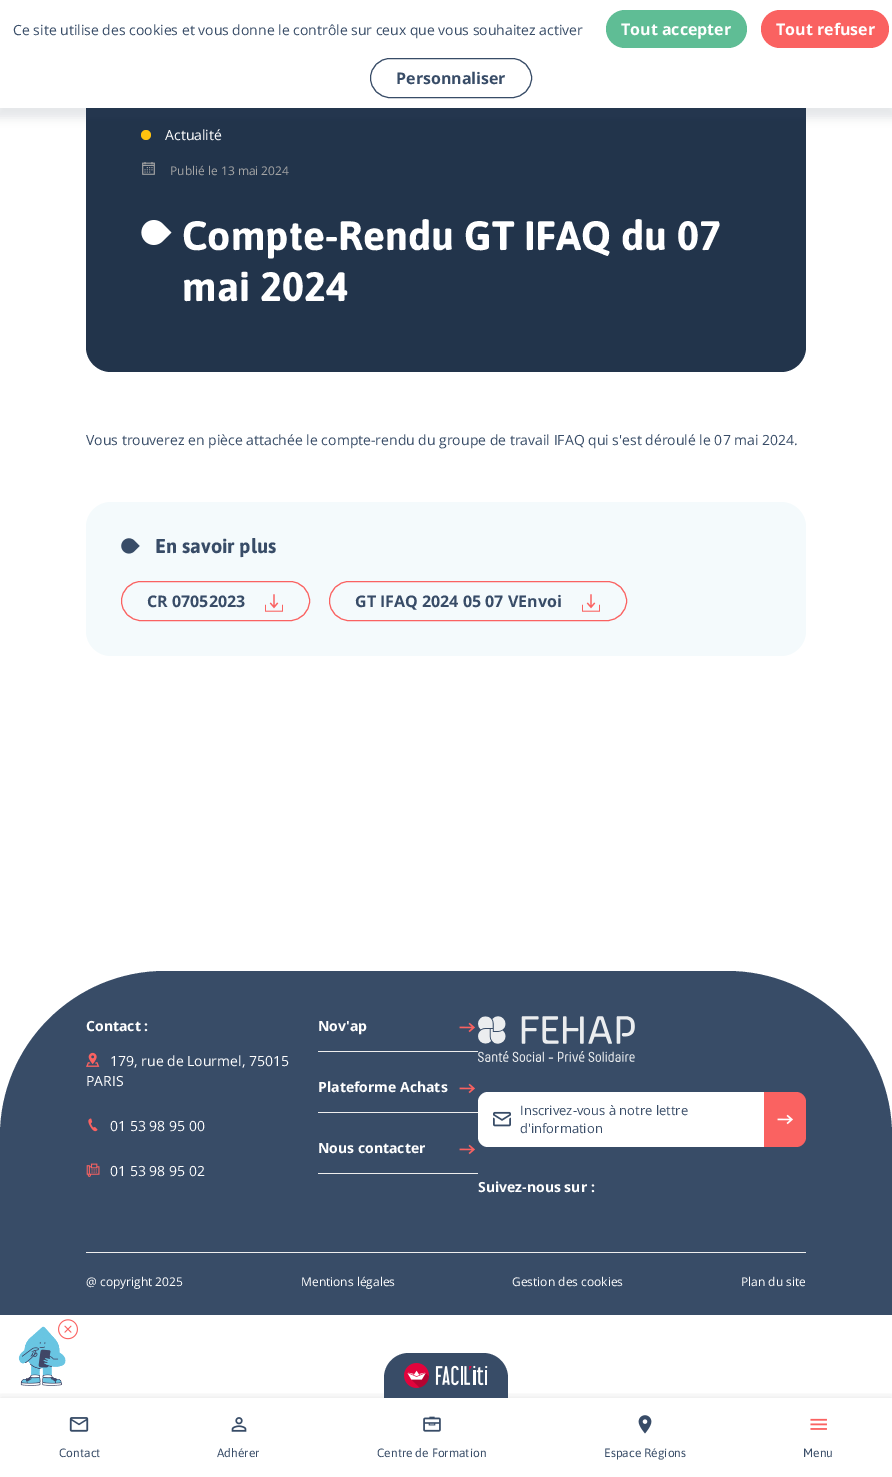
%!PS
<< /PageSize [892 1477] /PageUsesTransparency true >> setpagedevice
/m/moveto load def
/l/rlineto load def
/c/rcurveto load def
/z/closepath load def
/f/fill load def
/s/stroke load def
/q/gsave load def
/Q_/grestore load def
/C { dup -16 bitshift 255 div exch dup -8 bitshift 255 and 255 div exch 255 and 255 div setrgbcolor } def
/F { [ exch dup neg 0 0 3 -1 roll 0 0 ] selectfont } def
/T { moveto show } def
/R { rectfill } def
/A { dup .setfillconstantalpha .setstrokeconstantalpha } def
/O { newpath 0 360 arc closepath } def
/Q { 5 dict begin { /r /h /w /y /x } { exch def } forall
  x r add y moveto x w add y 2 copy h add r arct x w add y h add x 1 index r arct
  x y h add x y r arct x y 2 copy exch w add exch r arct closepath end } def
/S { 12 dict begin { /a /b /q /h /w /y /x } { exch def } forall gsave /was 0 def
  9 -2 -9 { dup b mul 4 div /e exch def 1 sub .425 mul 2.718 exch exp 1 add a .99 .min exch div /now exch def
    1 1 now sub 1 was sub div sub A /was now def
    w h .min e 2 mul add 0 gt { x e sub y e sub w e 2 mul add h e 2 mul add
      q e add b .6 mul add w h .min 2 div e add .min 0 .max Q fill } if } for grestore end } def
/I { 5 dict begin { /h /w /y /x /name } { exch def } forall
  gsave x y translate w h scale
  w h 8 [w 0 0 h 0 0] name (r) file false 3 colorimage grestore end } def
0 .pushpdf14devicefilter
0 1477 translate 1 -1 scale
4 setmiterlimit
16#FFFFFF C
0 0 892 1477 R
16#22344B C
86 75 720 297 25 Q f
16#FFC20F C
146 135 5 O f
16#384C67 C
-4 2 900 116 0 4.5 .13 S
16#FFFFFF C
0 0 892 108 R
/OpenSans-Regular 14 F
16#384C67 C
(Ce site utilise des cookies et vous donne le contrôle sur ceux que vous souhaitez activer) 13 35 T
16#5FBD95 C
606 10 141 38 19 Q f
/OpenSans-Bold 16 F
16#FFFFFF C
(Tout accepter) 621 35 T
16#FA6261 C
761 10 128 38 19 Q f
16#FFFFFF C
(Tout refuser) 776 35 T
16#384C67 C
370.5 58.5 161 39 19.5 Q s
(Personnaliser) 396 84 T
/OpenSans-Regular 14 F
16#FFFFFF C
(Actualité) 165 140 T
(1.rgb) 142 162 13 13 I
/OpenSans-Regular 12 F
16#A5A5A5 C
(Publié le 13 mai 2024) 170 175 T
(2.rgb) 141 220 31 25 I
/Asap-Bold 41 F
16#FFFFFF C
(Compte-Rendu GT IFAQ du 07) 182 250 T
(mai 2024) 182 301 T
/OpenSans-Regular 14 F
16#384C67 C
(Vous trouverez en pièce attachée le compte-rendu du groupe de travail IFAQ qui s'est déroulé le 07 mai 2024.) 86 445 T
16#F4FAFC C
86 502 720 154 25 Q f
(3.rgb) 121 538 19 16 I
/Asap-Bold 20 F
16#384C67 C
(En savoir plus) 155 553 T
16#FA6261 C
121.5 581.5 188 39 19.5 Q s
/OpenSans-Bold 16 F
16#384C67 C
(CR 07052023) 147 607 T
(4.rgb) 265 594 18 18 I
16#FA6261 C
329.5 581.5 297 39 19.5 Q s
16#384C67 C
(GT IFAQ 2024 05 07 VEnvoi) 355 607 T
(4.rgb) 582 594 18 18 I
165 971 m 562 0 l 91 0 165 74 165 165 c 0 179 l -892 0 l 0 -179 l 0 -91 74 -165 165 -165 c z f
/OpenSans-Bold 14 F
16#FFFFFF C
(Contact :) 86 1031 T
(5.rgb) 86 1052 14 15 I
/OpenSans-Regular 14 F
(179, rue de Lourmel, 75015) 110 1066 T
(PARIS) 86 1086 T
(6.rgb) 88 1118 10 14 I
(01 53 98 95 00) 110 1131 T
(7.rgb) 86 1163 14 14 I
(01 53 98 95 02) 110 1176 T
/OpenSans-Bold 14 F
(Nov'ap) 318 1031 T
(8.rgb) 459 1022 16 11 I
16#EEEEEE C
318 1051 160 1 R
16#FFFFFF C
(Plateforme Achats) 318 1092 T
(8.rgb) 459 1083 16 11 I
16#EEEEEE C
318 1112 160 1 R
16#FFFFFF C
(Nous contacter) 318 1153 T
(8.rgb) 459 1144 16 11 I
16#EEEEEE C
318 1173 160 1 R
(9.rgb) 478 1016 157 46 I
16#FFFFFF C
488 1092 m 276 0 l 0 55 l -276 0 l -5.5 0 -10 -4.5 -10 -10 c 0 -35 l 0 -5.5 4.5 -10 10 -10 c z f
(10.rgb) 493 1111 18 16 I
/OpenSans-Regular 13 F
16#384C67 C
(Inscrivez-vous à notre lettre) 520 1115 T
(d'information) 520 1133 T
16#FA6261 C
764 1092 m 32 0 l 5.5 0 10 4.5 10 10 c 0 35 l 0 5.5 -4.5 10 -10 10 c -32 0 l z f
(11.rgb) 777 1114 16 11 I
/OpenSans-Bold 14 F
16#FFFFFF C
(Suivez-nous sur :) 478 1192 T
16#EEEEEE C
86 1252 720 1 R
/OpenSans-Regular 12 F
16#FFFFFF C
(@ copyright 2025) 86 1286 T
(Mentions légales) 301 1286 T
(Gestion des cookies) 512 1286 T
(Plan du site) 741 1286 T
(12.rgb) 18 1326 48 60 I
(13.rgb) 58 1319 20 21 I
q
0 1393 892 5 rectclip
16#000000 C
0 1398 892 79 0 5.5 .11 S
Q_
16#384C67 C
409 1353 m 74 0 l 14 0 25 11 25 25 c 0 20 l -124 0 l 0 -20 l 0 -14 11 -25 25 -25 c z f
(14.rgb) 404 1363 84 25 I
(15.rgb) 69 1417 20 15 I
/Asap-Regular 12 F
(Contact) 59 1457 T
(16.rgb) 231 1417 16 15 I
(Adhérer) 217 1457 T
(17.rgb) 423 1416 18 16 I
(Centre de Formation) 377 1457 T
(18.rgb) 638 1415 14 19 I
(Espace Régions) 604 1457 T
(19.rgb) 810 1418 17 12 I
(Menu) 803 1457 T
.poppdf14devicefilter showpage
